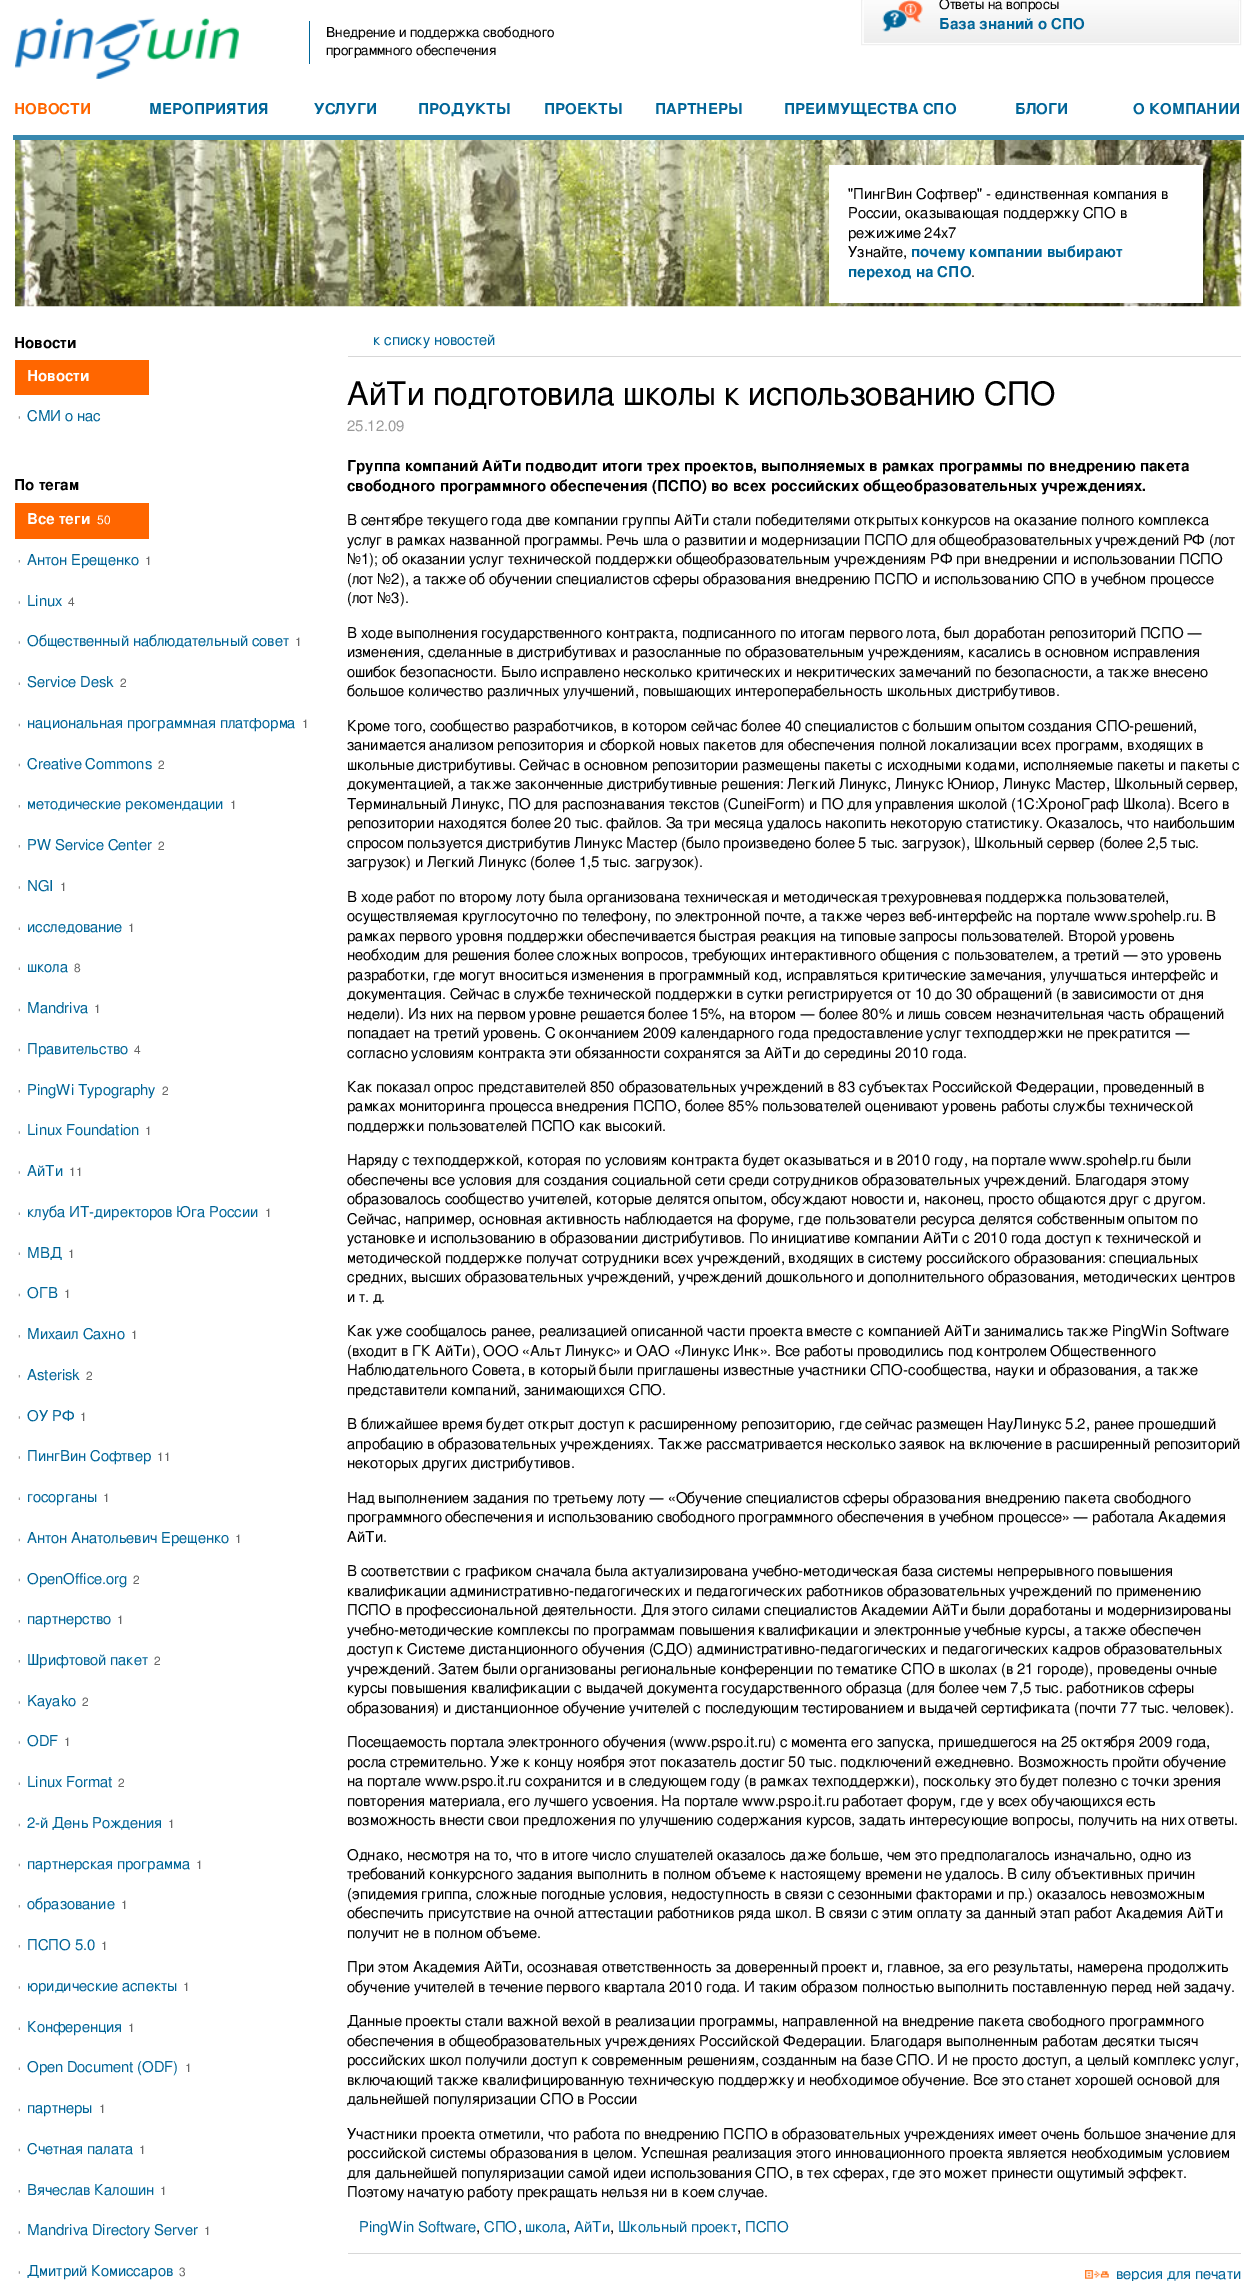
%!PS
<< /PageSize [1254 2281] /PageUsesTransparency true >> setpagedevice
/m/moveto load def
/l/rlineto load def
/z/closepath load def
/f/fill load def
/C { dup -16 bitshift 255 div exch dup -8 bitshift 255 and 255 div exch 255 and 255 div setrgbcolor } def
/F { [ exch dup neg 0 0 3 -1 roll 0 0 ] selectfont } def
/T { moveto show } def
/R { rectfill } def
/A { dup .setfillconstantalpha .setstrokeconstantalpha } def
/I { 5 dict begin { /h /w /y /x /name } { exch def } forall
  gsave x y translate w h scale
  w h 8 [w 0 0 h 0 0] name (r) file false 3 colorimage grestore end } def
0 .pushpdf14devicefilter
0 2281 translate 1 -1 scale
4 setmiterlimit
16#FFFFFF C
0 0 1254 2281 R
16#EFEFEF C
861.5 -.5 379 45 rectstroke
16#EEEEEE C
864 0 375 43 R
(1.rgb) 863 0 376 42 I
(2.rgb) 882 0 41 32 I
/FreeSans-Regular 13.75 F
16#000000 C
(Ответы на вопросы) 939 9 T
/FreeSans-SemiBold 15 F
16#006598 C
(База знаний о СПО) 939 29 T
(3.rgb) 15 18 224 61 I
16#006699 C
309 21 1 43 R
/FreeSans-Regular 13.75 F
16#000000 C
(Внедрение и поддержка свободного) 326 37 T
(программного обеспечения) 326 55 T
16#3888AF C
13 135 1231 5 R
/FreeSans-SemiBold 15 F
16#FF6600 C
(НОВОСТИ) 14 114 T
16#006598 C
(МЕРОПРИЯТИЯ) 149 114 T
(УСЛУГИ) 314 114 T
(ПРОДУКТЫ) 418 114 T
(ПРОЕКТЫ) 544 114 T
(ПАРТНЕРЫ) 655 114 T
(ПРЕИМУЩЕСТВА СПО) 784 114 T
(БЛОГИ) 1015 114 T
(О КОМПАНИИ) 1133 114 T
(4.rgb) 15 140 1227 167 I
0.17 A
16#000000 C
831 302 m 0 4 l 374 0 l 0 -137 l -3 0 l 0 133 l z f
1 A
16#FFFFFF C
829 165 374 138 R
/FreeSans-Regular 15 F
16#000000 C
("ПингВин Софтвер" - единственная компания в) 848 199 T
(России, оказывающая поддержку СПО в) 848 218 T
(режижиме 24х7) 848 238 T
(Узнайте,) 848 257 T
/FreeSans-SemiBold 15 F
16#006598 C
(почему компании выбирают) 911 257 T
(переход на СПО) 848 277 T
/FreeSans-Regular 15 F
16#000000 C
(.) 971 277 T
/FreeSans-SemiBold 15 F
(Новости) 14 348 T
16#FF6600 C
15 360 134 35 R
16#FFFFFF C
(Новости) 27 381 T
(5.rgb) 18 416 2 3 I
/FreeSans-Regular 15 F
16#006598 C
(СМИ о нас) 27 421 T
/FreeSans-SemiBold 15 F
16#000000 C
(По тегам) 14 490 T
16#FF6600 C
15 503 134 36 R
16#FFFFFF C
(Все теги) 27 524 T
/FreeSans-Regular 12 F
(50) 97 524 T
(6.rgb) 18 560 2 3 I
/FreeSans-Regular 15 F
16#006598 C
(Антон Ерещенко) 27 565 T
/FreeSans-Regular 12 F
16#666666 C
(1) 145 565 T
(5.rgb) 18 601 2 3 I
/FreeSans-Regular 15 F
16#006598 C
(Linux) 27 606 T
/FreeSans-Regular 12 F
16#666666 C
(4) 68 606 T
(5.rgb) 18 641 2 3 I
/FreeSans-Regular 15 F
16#006598 C
(Общественный наблюдательный совет) 27 646 T
/FreeSans-Regular 12 F
16#666666 C
(1) 295 646 T
(7.rgb) 18 682 2 3 I
/FreeSans-Regular 15 F
16#006598 C
(Service Desk) 27 687 T
/FreeSans-Regular 12 F
16#666666 C
(2) 120 687 T
(8.rgb) 18 723 2 4 I
/FreeSans-Regular 15 F
16#006598 C
(национальная программная платформа) 27 728 T
/FreeSans-Regular 12 F
16#666666 C
(1) 302 728 T
(8.rgb) 18 763 2 4 I
/FreeSans-Regular 15 F
16#006598 C
(Creative Commons) 27 769 T
/FreeSans-Regular 12 F
16#666666 C
(2) 158 769 T
(6.rgb) 18 805 2 3 I
/FreeSans-Regular 15 F
16#006598 C
(методические рекомендации) 27 809 T
/FreeSans-Regular 12 F
16#666666 C
(1) 230 809 T
(6.rgb) 18 845 2 3 I
/FreeSans-Regular 15 F
16#006598 C
(PW Service Center) 27 850 T
/FreeSans-Regular 12 F
16#666666 C
(2) 158 850 T
(5.rgb) 18 886 2 3 I
/FreeSans-Regular 15 F
16#006598 C
(NGI) 27 891 T
/FreeSans-Regular 12 F
16#666666 C
(1) 60 891 T
(7.rgb) 18 927 2 3 I
/FreeSans-Regular 15 F
16#006598 C
(исследование) 27 932 T
/FreeSans-Regular 12 F
16#666666 C
(1) 128 932 T
(7.rgb) 18 967 2 3 I
/FreeSans-Regular 15 F
16#006598 C
(школа) 27 972 T
/FreeSans-Regular 12 F
16#666666 C
(8) 74 972 T
(8.rgb) 18 1008 2 4 I
/FreeSans-Regular 15 F
16#006598 C
(Mandriva) 27 1013 T
/FreeSans-Regular 12 F
16#666666 C
(1) 94 1013 T
(8.rgb) 18 1048 2 4 I
/FreeSans-Regular 15 F
16#006598 C
(Правительство) 27 1054 T
/FreeSans-Regular 12 F
16#666666 C
(4) 134 1054 T
(6.rgb) 18 1090 2 3 I
/FreeSans-Regular 15 F
16#006598 C
(PingWi Typography) 27 1095 T
/FreeSans-Regular 12 F
16#666666 C
(2) 162 1095 T
(5.rgb) 18 1131 2 3 I
/FreeSans-Regular 15 F
16#006598 C
(Linux Foundation) 27 1135 T
/FreeSans-Regular 12 F
16#666666 C
(1) 145 1135 T
(5.rgb) 18 1171 2 3 I
/FreeSans-Regular 15 F
16#006598 C
(АйТи) 27 1176 T
/FreeSans-Regular 12 F
16#666666 C
(11) 69 1176 T
(7.rgb) 18 1212 2 3 I
/FreeSans-Regular 15 F
16#006598 C
(клуба ИТ-директоров Юга России) 27 1217 T
/FreeSans-Regular 12 F
16#666666 C
(1) 265 1217 T
(7.rgb) 18 1252 2 3 I
/FreeSans-Regular 15 F
16#006598 C
(МВД) 27 1258 T
/FreeSans-Regular 12 F
16#666666 C
(1) 68 1258 T
(8.rgb) 18 1293 2 4 I
/FreeSans-Regular 15 F
16#006598 C
(ОГВ) 27 1298 T
/FreeSans-Regular 12 F
16#666666 C
(1) 64 1298 T
(6.rgb) 18 1335 2 3 I
/FreeSans-Regular 15 F
16#006598 C
(Михаил Сахно) 27 1339 T
/FreeSans-Regular 12 F
16#666666 C
(1) 131 1339 T
(6.rgb) 18 1375 2 3 I
/FreeSans-Regular 15 F
16#006598 C
(Asterisk) 27 1380 T
/FreeSans-Regular 12 F
16#666666 C
(2) 86 1380 T
(5.rgb) 18 1416 2 3 I
/FreeSans-Regular 15 F
16#006598 C
(ОУ РФ) 27 1421 T
/FreeSans-Regular 12 F
16#666666 C
(1) 80 1421 T
(5.rgb) 18 1456 2 3 I
/FreeSans-Regular 15 F
16#006598 C
(ПингВин Софтвер) 27 1461 T
/FreeSans-Regular 12 F
16#666666 C
(11) 157 1461 T
(7.rgb) 18 1497 2 3 I
/FreeSans-Regular 15 F
16#006598 C
(госорганы) 27 1502 T
/FreeSans-Regular 12 F
16#666666 C
(1) 103 1502 T
(8.rgb) 18 1538 2 4 I
/FreeSans-Regular 15 F
16#006598 C
(Антон Анатольевич Ерещенко) 27 1543 T
/FreeSans-Regular 12 F
16#666666 C
(1) 235 1543 T
(8.rgb) 18 1578 2 4 I
/FreeSans-Regular 15 F
16#006598 C
(OpenOffice.org) 27 1584 T
/FreeSans-Regular 12 F
16#666666 C
(2) 133 1584 T
(6.rgb) 18 1620 2 3 I
/FreeSans-Regular 15 F
16#006598 C
(партнерство) 27 1624 T
/FreeSans-Regular 12 F
16#666666 C
(1) 117 1624 T
(6.rgb) 18 1660 2 3 I
/FreeSans-Regular 15 F
16#006598 C
(Шрифтовой пакет) 27 1665 T
/FreeSans-Regular 12 F
16#666666 C
(2) 154 1665 T
(5.rgb) 18 1701 2 3 I
/FreeSans-Regular 15 F
16#006598 C
(Kayako) 27 1706 T
/FreeSans-Regular 12 F
16#666666 C
(2) 82 1706 T
(5.rgb) 18 1741 2 3 I
/FreeSans-Regular 15 F
16#006598 C
(ODF) 27 1746 T
/FreeSans-Regular 12 F
16#666666 C
(1) 64 1746 T
(7.rgb) 18 1782 2 3 I
/FreeSans-Regular 15 F
16#006598 C
(Linux Format) 27 1787 T
/FreeSans-Regular 12 F
16#666666 C
(2) 118 1787 T
(8.rgb) 18 1823 2 4 I
/FreeSans-Regular 15 F
16#006598 C
(2-й День Рождения) 27 1828 T
/FreeSans-Regular 12 F
16#666666 C
(1) 168 1828 T
(8.rgb) 18 1863 2 4 I
/FreeSans-Regular 15 F
16#006598 C
(партнерская программа) 27 1869 T
/FreeSans-Regular 12 F
16#666666 C
(1) 196 1869 T
(6.rgb) 18 1905 2 3 I
/FreeSans-Regular 15 F
16#006598 C
(образование) 27 1909 T
/FreeSans-Regular 12 F
16#666666 C
(1) 121 1909 T
(6.rgb) 18 1945 2 3 I
/FreeSans-Regular 15 F
16#006598 C
(ПСПО 5.0) 27 1950 T
/FreeSans-Regular 12 F
16#666666 C
(1) 101 1950 T
(5.rgb) 18 1986 2 3 I
/FreeSans-Regular 15 F
16#006598 C
(юридические аспекты) 27 1991 T
/FreeSans-Regular 12 F
16#666666 C
(1) 183 1991 T
(7.rgb) 18 2027 2 3 I
/FreeSans-Regular 15 F
16#006598 C
(Конференция) 27 2032 T
/FreeSans-Regular 12 F
16#666666 C
(1) 128 2032 T
(7.rgb) 18 2067 2 3 I
/FreeSans-Regular 15 F
16#006598 C
(Open Document \(ODF\)) 27 2072 T
/FreeSans-Regular 12 F
16#666666 C
(1) 185 2072 T
(8.rgb) 18 2108 2 4 I
/FreeSans-Regular 15 F
16#006598 C
(партнеры) 27 2113 T
/FreeSans-Regular 12 F
16#666666 C
(1) 99 2113 T
(8.rgb) 18 2148 2 4 I
/FreeSans-Regular 15 F
16#006598 C
(Счетная палата) 27 2154 T
/FreeSans-Regular 12 F
16#666666 C
(1) 139 2154 T
(6.rgb) 18 2190 2 3 I
/FreeSans-Regular 15 F
16#006598 C
(Вячеслав Калошин) 27 2195 T
/FreeSans-Regular 12 F
16#666666 C
(1) 160 2195 T
(5.rgb) 18 2231 2 3 I
/FreeSans-Regular 15 F
16#006598 C
(Mandriva Directory Server) 27 2235 T
/FreeSans-Regular 12 F
16#666666 C
(1) 204 2235 T
(5.rgb) 18 2271 2 3 I
/FreeSans-Regular 15 F
16#006598 C
(Дмитрий Комиссаров) 27 2276 T
/FreeSans-Regular 12 F
16#666666 C
(3) 179 2276 T
16#D7D7D7 C
348 356 893 1 R
/FreeSans-Regular 15 F
16#006598 C
(к списку новостей) 373 345 T
/FreeSans-Regular 32.5 F
16#000000 C
(АйТи подготовила школы к использованию СПО) 347 405 T
/FreeSans-Regular 15 F
16#999999 C
(25.12.09) 347 431 T
/FreeSans-SemiBold 15 F
16#000000 C
(Группа компаний АйТи подводит итоги трех проектов, выполняемых в рамках программы по внедрению пакета) 347 471 T
(свободного программного обеспечения \(ПСПО\) во всех российских общеобразовательных учреждениях.) 347 491 T
/FreeSans-Regular 15 F
(В сентябре текущего года две компании группы АйТи стали победителями открытых конкурсов на оказание полного комплекса) 347 525 T
(услуг в рамках названной программы. Речь шла о развитии и модернизации ПСПО для общеобразовательных учреждений РФ \(лот) 347 545 T
(№1\); об оказании услуг технической поддержки общеобразовательным учреждениям РФ при внедрении и использовании ПСПО) 347 564 T
(\(лот №2\), а также об обучении специалистов сферы образования внедрению ПСПО и использованию СПО в учебном процессе) 347 584 T
(\(лот №3\).) 347 603 T
(В ходе выполнения государственного контракта, подписанного по итогам первого лота, был доработан репозиторий ПСПО —) 347 638 T
(изменения, сделанные в дистрибутивах и разосланные по образовательным учреждениям, касались в основном исправления) 347 657 T
(ошибок безопасности. Было исправлено несколько критических и некритических замечаний по безопасности, а также внесено) 347 677 T
(большое количество различных улучшений, повышающих интероперабельность школьных дистрибутивов.) 347 696 T
(Кроме того, сообщество разработчиков, в котором сейчас более 40 специалистов с большим опытом создания СПО-решений,) 347 731 T
(занимается анализом репозитория и сборкой новых пакетов для обеспечения полной локализации всех программ, входящих в) 347 750 T
(школьные дистрибутивы. Сейчас в основном репозитории размещены пакеты с исходными кодами, исполняемые пакеты и пакеты с) 347 770 T
(документацией, а также законченные дистрибутивные решения: Легкий Линукс, Линукс Юниор, Линукс Мастер, Школьный сервер,) 347 789 T
(Терминальный Линукс, ПО для распознавания текстов \(CuneiForm\) и ПО для управления школой \(1С:ХроноГраф Школа\). Всего в) 347 809 T
(репозитории находятся более 20 тыс. файлов. За три месяца удалось накопить некоторую статистику. Оказалось, что наибольшим) 347 828 T
(спросом пользуется дистрибутив Линукс Мастер \(было произведено более 5 тыс. загрузок\), Школьный сервер \(более 2,5 тыс.) 347 848 T
(загрузок\) и Легкий Линукс \(более 1,5 тыс. загрузок\).) 347 867 T
(В ходе работ по второму лоту была организована техническая и методическая трехуровневая поддержка пользователей,) 347 902 T
(осуществляемая круглосуточно по телефону, по электронной почте, а также через веб-интерфейс на портале www.spohelp.ru. В) 347 921 T
(рамках первого уровня поддержки обеспечивается быстрая реакция на типовые запросы пользователей. Второй уровень) 347 941 T
(необходим для решения более сложных вопросов, требующих интерактивного общения с пользователем, а третий — это уровень) 347 960 T
(разработки, где могут вноситься изменения в программный код, исправляться критические замечания, улучшаться интерфейс и) 347 980 T
(документация. Сейчас в службе технической поддержки в сутки регистрируется от 10 до 30 обращений \(в зависимости от дня) 347 999 T
(недели\). Из них на первом уровне решается более 15%, на втором — более 80% и лишь совсем незначительная часть обращений) 347 1019 T
(попадает на третий уровень. С окончанием 2009 календарного года предоставление услуг техподдержки не прекратится —) 347 1038 T
(согласно условиям контракта эти обязанности сохранятся за АйТи до середины 2010 года.) 347 1058 T
(Как показал опрос представителей 850 образовательных учреждений в 83 субъектах Российской Федерации, проведенный в) 347 1092 T
(рамках мониторинга процесса внедрения ПСПО, более 85% пользователей оценивают уровень работы службы технической) 347 1111 T
(поддержки пользователей ПСПО как высокий.) 347 1131 T
(Наряду с техподдержкой, которая по условиям контракта будет оказываться и в 2010 году, на портале www.spohelp.ru были) 347 1165 T
(обеспечены все условия для создания социальной сети среди сотрудников образовательных учреждений. Благодаря этому) 347 1185 T
(образовалось сообщество учителей, которые делятся опытом, обсуждают новости и, наконец, просто общаются друг с другом.) 347 1204 T
(Сейчас, например, основная активность наблюдается на форуме, где пользователи ресурса делятся собственным опытом по) 347 1224 T
(установке и использованию в образовании дистрибутивов. По инициативе компании АйТи с 2010 года доступ к технической и) 347 1243 T
(методической поддержке получат сотрудники всех учреждений, входящих в систему российского образования: специальных) 347 1263 T
(средних, высших образовательных учреждений, учреждений дошкольного и дополнительного образования, методических центров) 347 1282 T
(и т. д.) 347 1302 T
(Как уже сообщалось ранее, реализацией описанной части проекта вместе с компанией АйТи занимались также PingWin Software) 347 1336 T
(\(входит в ГК АйТи\), ООО «Альт Линукс» и ОАО «Линукс Инк». Все работы проводились под контролем Общественного) 347 1356 T
(Наблюдательного Совета, в который были приглашены известные участники СПО-сообщества, науки и образования, а также) 347 1375 T
(представители компаний, занимающихся СПО.) 347 1395 T
(В ближайшее время будет открыт доступ к расширенному репозиторию, где сейчас размещен НауЛинукс 5.2, ранее прошедший) 347 1429 T
(апробацию в образовательных учреждениях. Также рассматривается несколько заявок на включение в расширенный репозиторий) 347 1449 T
(некоторых других дистрибутивов.) 347 1468 T
(Над выполнением задания по третьему лоту — «Обучение специалистов сферы образования внедрению пакета свободного) 347 1503 T
(программного обеспечения и использованию свободного программного обеспечения в учебном процессе» — работала Академия) 347 1522 T
(АйТи.) 347 1542 T
(В соответствии с графиком сначала была актуализирована учебно-методическая база системы непрерывного повышения) 347 1576 T
(квалификации административно-педагогических и педагогических работников образовательных учреждений по применению) 347 1596 T
(ПСПО в профессиональной деятельности. Для этого силами специалистов Академии АйТи были доработаны и модернизированы) 347 1615 T
(учебно-методические комплексы по программам повышения квалификации и электронные учебные курсы, а также обеспечен) 347 1635 T
(доступ к Системе дистанционного обучения \(СДО\) административно-педагогических и педагогических кадров образовательных) 347 1654 T
(учреждений. Затем были организованы региональные конференции по тематике СПО в школах \(в 21 городе\), проведены очные) 347 1674 T
(курсы повышения квалификации с выдачей документа государственного образца \(для более чем 7,5 тыс. работников сферы) 347 1693 T
(образования\) и дистанционное обучение учителей с последующим тестированием и выдачей сертификата \(почти 77 тыс. человек\).) 347 1713 T
(Посещаемость портала электронного обучения \(www.pspo.it.ru\) с момента его запуска, пришедшегося на 25 октября 2009 года,) 347 1747 T
(росла стремительно. Уже к концу ноября этот показатель достиг 50 тыс. подключений ежедневно. Возможность пройти обучение) 347 1767 T
(на портале www.pspo.it.ru сохранится и в следующем году \(в рамках техподдержки\), поскольку это будет полезно с точки зрения) 347 1786 T
(повторения материала, его лучшего усвоения. На портале www.pspo.it.ru работает форум, где у всех обучающихся есть) 347 1806 T
(возможность внести свои предложения по улучшению содержания курсов, задать интересующие вопросы, получить на них ответы.) 347 1825 T
(Однако, несмотря на то, что в итоге число слушателей оказалось даже больше, чем это предполагалось изначально, одно из) 347 1860 T
(требований конкурсного задания выполнить в полном объеме к настоящему времени не удалось. В силу объективных причин) 347 1879 T
(\(эпидемия гриппа, сложные погодные условия, недоступность в связи с сезонными факторами и пр.\) оказалось невозможным) 347 1899 T
(обеспечить присутствие на очной аттестации работников ряда школ. В связи с этим оплату за данный этап работ Академия АйТи) 347 1918 T
(получит не в полном объеме.) 347 1938 T
(При этом Академия АйТи, осознавая ответственность за доверенный проект и, главное, за его результаты, намерена продолжить) 347 1972 T
(обучение учителей в течение первого квартала 2010 года. И таким образом полностью выполнить поставленную перед ней задачу.) 347 1992 T
(Данные проекты стали важной вехой в реализации программы, направленной на внедрение пакета свободного программного) 347 2026 T
(обеспечения в общеобразовательных учреждениях Российской Федерации. Благодаря выполненным работам десятки тысяч) 347 2046 T
(российских школ получили доступ к современным решениям, созданным на базе СПО. И не просто доступ, а целый комплекс услуг,) 347 2065 T
(включающий также квалифицированную техническую поддержку и необходимое обучение. Все это станет хорошей основой для) 347 2085 T
(дальнейшей популяризации СПО в России) 347 2104 T
(Участники проекта отметили, что работа по внедрению ПСПО в образовательных учреждениях имеет очень большое значение для) 347 2139 T
(российской системы образования в целом. Успешная реализация этого инновационного проекта является необходимым условием) 347 2158 T
(для дальнейшей популяризации самой идеи использования СПО, в тех сферах, где это может принести ощутимый эффект.) 347 2178 T
(Поэтому начатую работу прекращать нельзя ни в коем случае.) 347 2197 T
16#006598 C
(PingWin Software) 359 2232 T
16#000000 C
(,) 476 2232 T
16#006598 C
(СПО) 484 2232 T
16#000000 C
(,) 518 2232 T
16#006598 C
(школа) 525 2232 T
16#000000 C
(,) 566 2232 T
16#006598 C
(АйТи) 574 2232 T
16#000000 C
(,) 610 2232 T
16#006598 C
(Школьный проект) 618 2232 T
16#000000 C
(,) 737 2232 T
16#006598 C
(ПСПО) 745 2232 T
16#D7D7D7 C
348 2253 893 1 R
(9.rgb) 1085 2270 24 9 I
16#006598 C
(версия для печати) 1116 2279 T
.poppdf14devicefilter showpage
